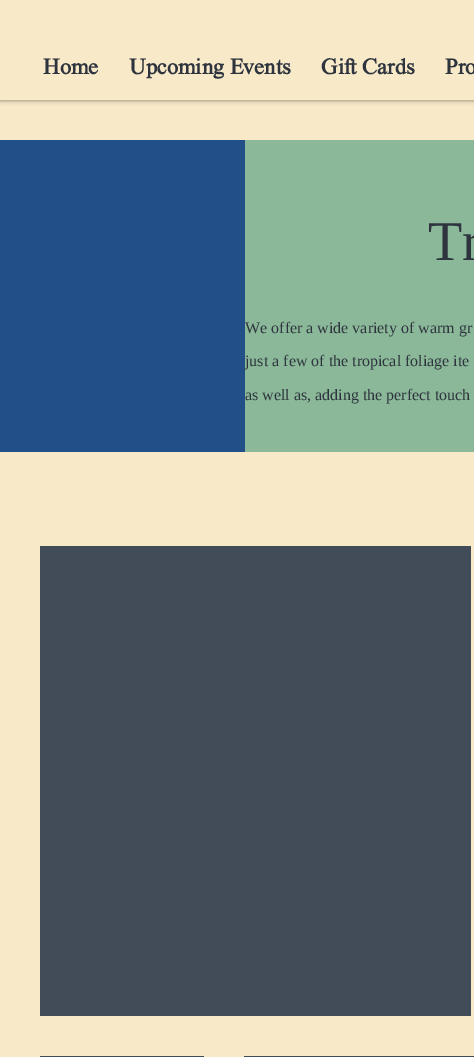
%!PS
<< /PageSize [474 1057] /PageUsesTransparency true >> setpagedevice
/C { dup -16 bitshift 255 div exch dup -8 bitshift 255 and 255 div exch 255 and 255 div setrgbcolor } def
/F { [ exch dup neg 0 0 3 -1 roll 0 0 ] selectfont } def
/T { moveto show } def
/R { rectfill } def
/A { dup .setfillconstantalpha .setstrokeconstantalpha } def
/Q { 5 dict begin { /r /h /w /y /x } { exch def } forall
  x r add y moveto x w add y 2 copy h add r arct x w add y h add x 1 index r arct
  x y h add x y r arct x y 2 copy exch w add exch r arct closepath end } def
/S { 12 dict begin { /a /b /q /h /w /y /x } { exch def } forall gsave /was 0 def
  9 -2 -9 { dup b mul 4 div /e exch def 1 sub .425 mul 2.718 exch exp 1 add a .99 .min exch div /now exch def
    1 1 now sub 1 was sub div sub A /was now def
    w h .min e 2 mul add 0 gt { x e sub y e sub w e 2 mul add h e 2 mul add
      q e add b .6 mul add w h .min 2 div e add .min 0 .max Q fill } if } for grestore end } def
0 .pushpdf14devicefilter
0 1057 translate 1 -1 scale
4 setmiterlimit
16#F8E9C9 C
0 0 474 1057 R
16#000000 C
0 0 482 100 0 2.5 .5 S
16#F8E9C9 C
0 0 474 100 R
/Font-Bold 22 F
16#2D343D C
(Home) 43 74 T
(Upcoming Events) 129 74 T
(Gift Cards) 321 74 T
(Pro) 445 74 T
16#234F88 C
0 140 245 312 R
16#8BB899 C
245 140 229 312 R
/LiberationSerif-Regular 56 F
16#2D343D C
(Tr) 428 260 T
/LiberationSerif-Regular 16 F
(We offer a wide variety of warm gr) 245 333 T
(just a few of the tropical foliage ite) 245 366 T
(as well as, adding the perfect touch) 245 400 T
16#424C59 C
40 546 431 470 R
40 1056 164 1 R
244 1056 230 1 R
.poppdf14devicefilter showpage
